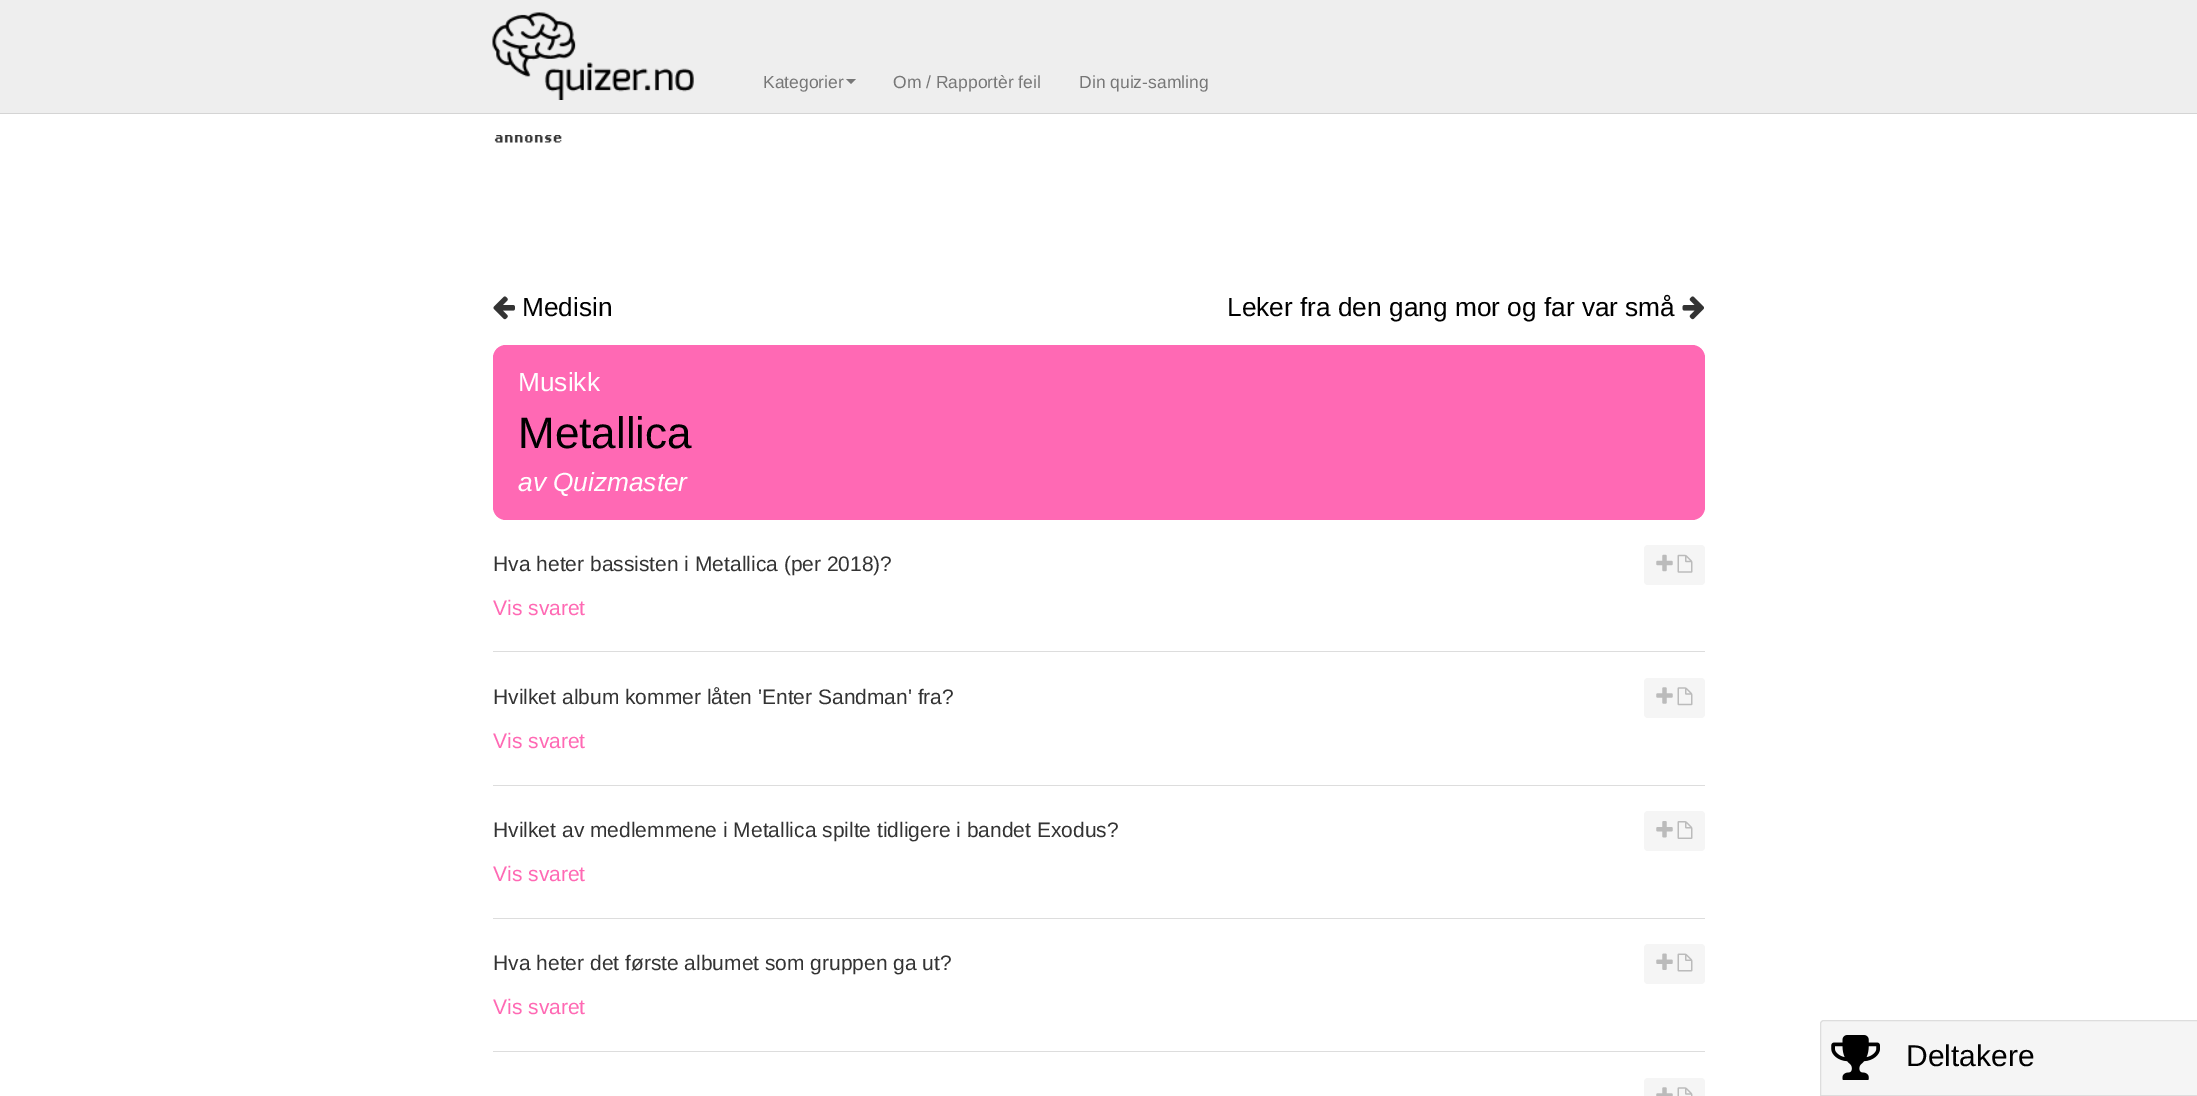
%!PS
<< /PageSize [2197 1096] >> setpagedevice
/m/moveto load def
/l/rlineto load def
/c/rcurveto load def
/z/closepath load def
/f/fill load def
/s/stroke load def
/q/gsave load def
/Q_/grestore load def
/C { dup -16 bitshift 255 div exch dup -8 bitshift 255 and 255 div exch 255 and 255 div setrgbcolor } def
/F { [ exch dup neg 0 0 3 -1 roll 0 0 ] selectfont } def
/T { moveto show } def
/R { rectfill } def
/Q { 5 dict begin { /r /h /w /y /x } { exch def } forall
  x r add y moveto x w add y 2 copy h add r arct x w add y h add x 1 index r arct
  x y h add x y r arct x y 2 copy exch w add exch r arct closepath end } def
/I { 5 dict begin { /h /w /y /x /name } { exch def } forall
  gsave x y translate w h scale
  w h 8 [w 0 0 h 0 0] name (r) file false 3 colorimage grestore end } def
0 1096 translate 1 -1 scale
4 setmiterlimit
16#FFFFFF C
0 0 2197 1096 R
16#EEEEEE C
0 0 2197 113 R
16#D4D4D4 C
0 113 2197 1 R
(1.rgb) 492 12 202 88 I
/LiberationSans-Regular 17.5 F
16#777777 C
(Kategorier) 763 88 T
846 79 m 10 0 l -5 5 l z f
(Om / Rapportèr feil) 893 88 T
(Din quiz-samling) 1079 88 T
(2.rgb) 494 135 68 8 I
(3.rgb) 493 296 22 24 I
/LiberationSans-Regular 26.25 F
16#000000 C
(Medisin) 522 316 T
(Leker fra den gang mor og far var små) 1227 316 T
(4.rgb) 1682 296 22 24 I
16#FF69B4 C
493 345 1212 175 13 Q f
16#FFFFFF C
(Musikk) 518 391 T
/LiberationSans-Regular 44 F
16#000000 C
(Metallica) 518 448 T
/LiberationSans-Italic 26.25 F
16#FFFFFF C
(av Quizmaster) 518 491 T
16#DDDDDD C
493 651 1212 1 R
/LiberationSans-Regular 21 F
16#333333 C
(Hva heter bassisten i Metallica \(per 2018\)?) 493 571 T
16#F5F5F5 C
1644 545 61 40 4 Q f
(5.rgb) 1656 554 17 18 I
(6.rgb) 1677 554 16 19 I
16#FF69B4 C
(Vis svaret) 493 615 T
16#DDDDDD C
493 785 1212 1 R
16#333333 C
(Hvilket album kommer låten 'Enter Sandman' fra?) 493 704 T
16#F5F5F5 C
1644 678 61 40 4 Q f
(7.rgb) 1656 687 17 17 I
(8.rgb) 1677 687 16 19 I
16#FF69B4 C
(Vis svaret) 493 748 T
16#DDDDDD C
493 918 1212 1 R
16#333333 C
(Hvilket av medlemmene i Metallica spilte tidligere i bandet Exodus?) 493 837 T
16#F5F5F5 C
1644 811 61 40 4 Q f
(9.rgb) 1656 821 17 17 I
(10.rgb) 1677 821 16 18 I
16#FF69B4 C
(Vis svaret) 493 881 T
16#DDDDDD C
493 1051 1212 1 R
16#333333 C
(Hva heter det første albumet som gruppen ga ut?) 493 970 T
16#F5F5F5 C
1644 944 61 40 4 Q f
(11.rgb) 1656 953 17 17 I
(12.rgb) 1677 953 16 19 I
16#FF69B4 C
(Vis svaret) 493 1014 T
16#F5F5F5 C
1644 1078 61 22 4 Q f
(13.rgb) 1656 1087 17 9 I
(14.rgb) 1677 1087 16 9 I
1824 1020.5 m 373.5 0 l 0 75 l -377 0 l 0 -71.5 l 0 -2 1.5 -3.5 3.5 -3.5 c z q f Q_
16#DDDDDD C
s
(15.rgb) 1831 1035 49 45 I
/LiberationSans-Regular 30 F
16#000000 C
(Deltakere) 1906 1066 T
showpage
